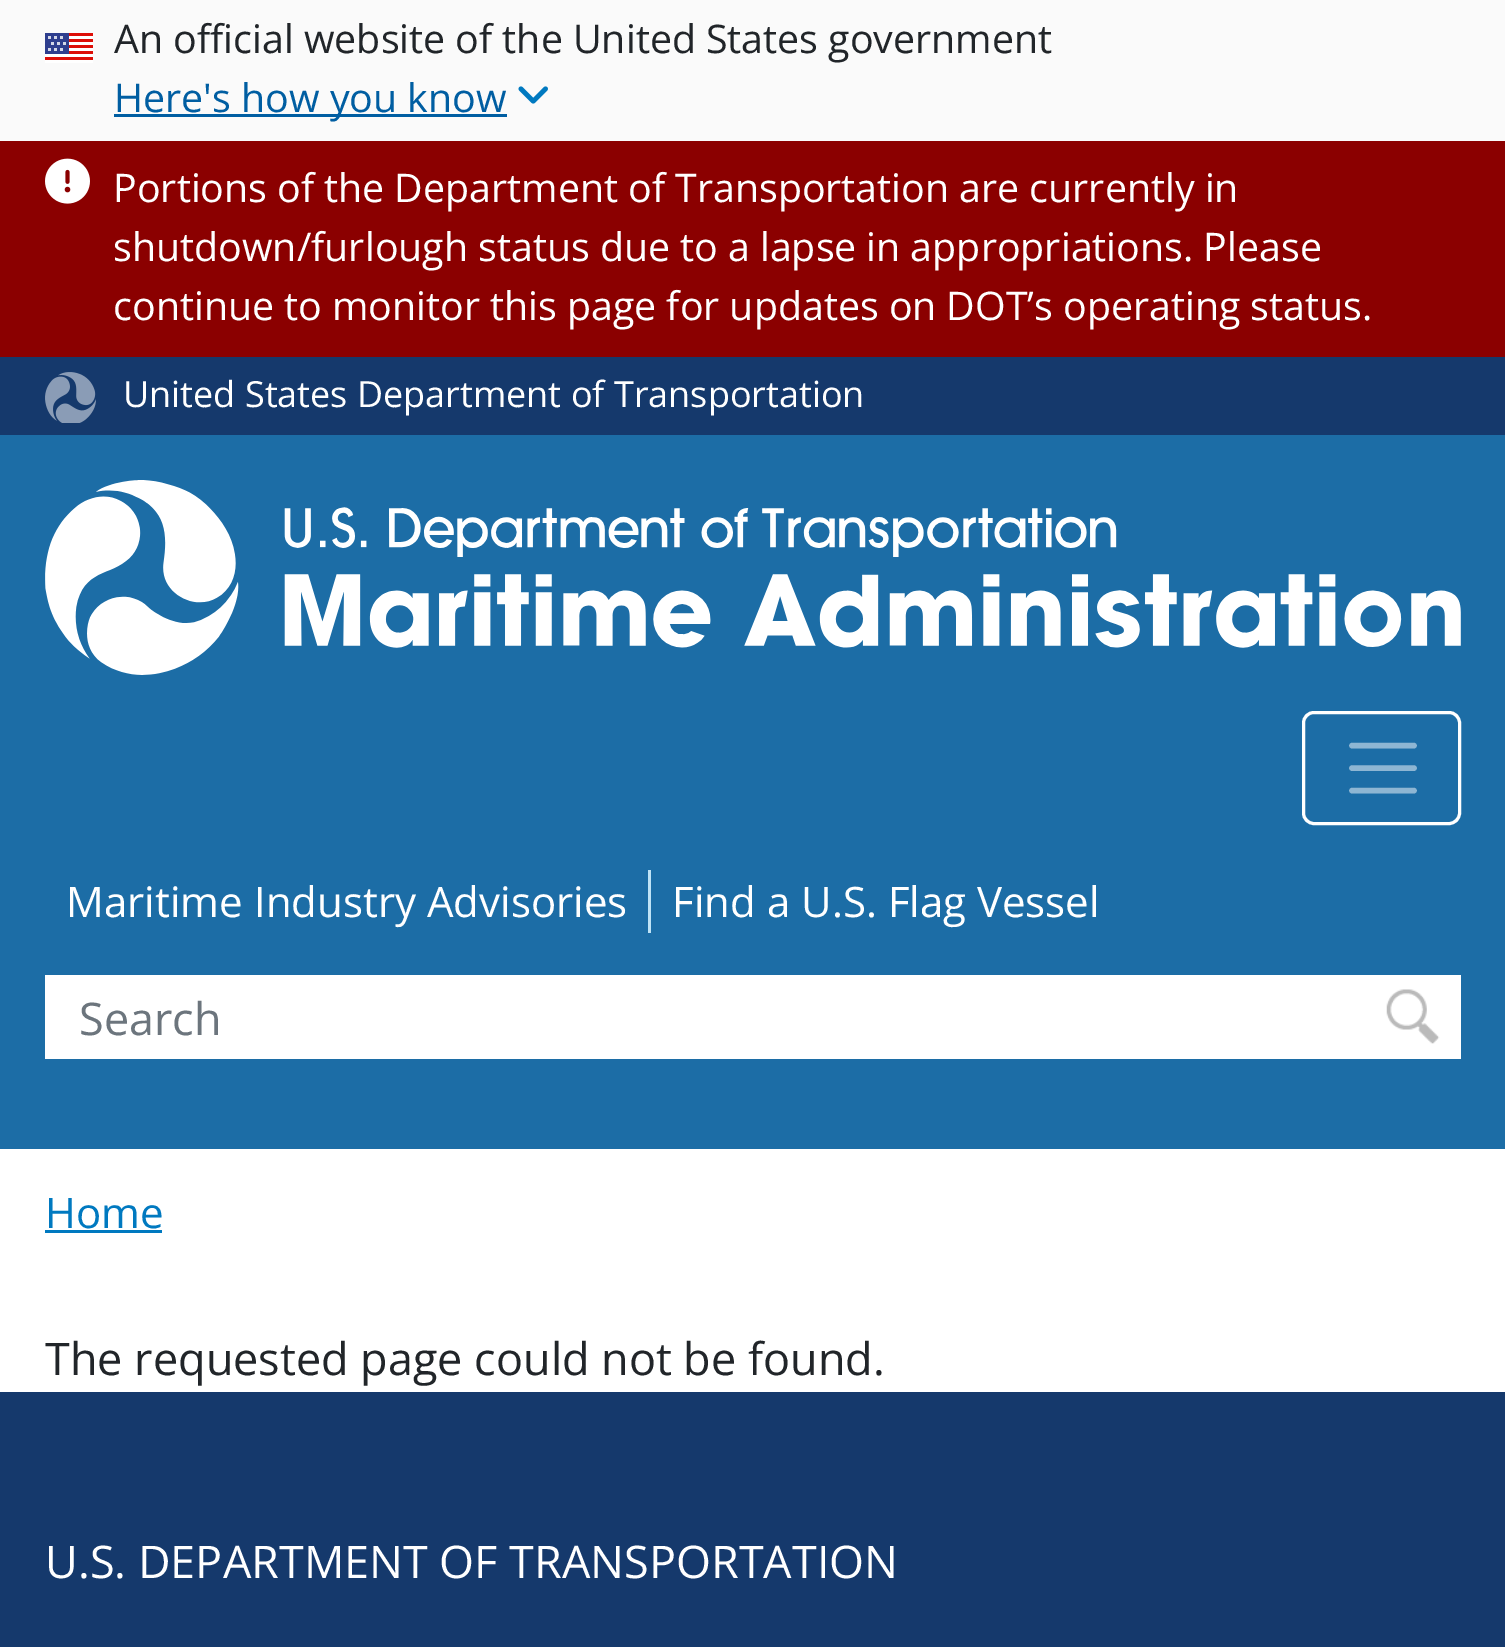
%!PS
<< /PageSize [1505 1647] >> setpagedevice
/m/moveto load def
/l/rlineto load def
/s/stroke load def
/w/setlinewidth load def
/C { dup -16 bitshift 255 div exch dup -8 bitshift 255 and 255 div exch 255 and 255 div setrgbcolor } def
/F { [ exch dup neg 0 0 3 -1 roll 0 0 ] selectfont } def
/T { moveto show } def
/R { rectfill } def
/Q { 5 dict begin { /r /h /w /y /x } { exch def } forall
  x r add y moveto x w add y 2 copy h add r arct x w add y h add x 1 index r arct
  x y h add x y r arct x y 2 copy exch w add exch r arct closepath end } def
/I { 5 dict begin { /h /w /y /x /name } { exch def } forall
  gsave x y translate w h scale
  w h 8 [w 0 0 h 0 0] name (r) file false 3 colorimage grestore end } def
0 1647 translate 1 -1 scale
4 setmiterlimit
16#FFFFFF C
0 0 1505 1647 R
16#FAFAFA C
0 0 1505 141 R
(1.rgb) 45 33 48 30 I
/OpenSans-Regular 39.4 F
16#212529 C
114 53 m -.25 0 32 (An official website of the United States government) widthshow
16#005EA2 C
114 114 393 3 R
(Here's how you know) 114 112 T
(2.rgb) 518 86 30 18 I
16#8B0000 C
0 141 1505 216 R
(3.rgb) 45 158 45 46 I
16#FFFFFF C
113 202 m -.25 0 32 (Portions of the Department of Transportation are currently in) widthshow
113 261 m -.25 0 32 (shutdown/furlough status due to a lapse in appropriations. Please) widthshow
113 320 m -.25 0 32 (continue to monitor this page for updates on DOT’s operating status.) widthshow
16#15396C C
0 357 1505 78 R
(4.rgb) 45 372 51 51 I
/OpenSans-Regular 36 F
16#FFFFFF C
(United States Department of Transportation) 123 407 T
16#1C6DA6 C
0 435 1505 714 R
(5.rgb) 45 480 1416 195 I
16#FFFFFF C
3 w
1303.5 712.5 156 111 10.5 Q s
16#8EB6D3 C
5.6 w
1 setlinecap
1352 745.5 m 62 0 l 1352 768 m 62 0 l 1352 790.5 m 62 0 l s
16#BFE3F6 C
648 870 3 63 R
/OpenSans-Regular 42 F
16#FFFFFF C
(Maritime Industry Advisories) 66 917 T
(Find a U.S. Flag Vessel) 672 917 T
45 975 1416 84 R
/OpenSans-Regular 45 F
16#6C757D C
(Search) 79 1035 T
(6.rgb) 1386 989 54 55 I
/OpenSans-Regular 42 F
16#0079C0 C
(Home) 45 1228 T
45 1230 117 3 R
/OpenSans-Regular 45 F
16#212529 C
(The requested page could not be found.) 45 1375 T
16#15396C C
0 1392 1505 255 R
16#FFFFFF C
(U.S. DEPARTMENT OF TRANSPORTATION) 45 1578 T
showpage
